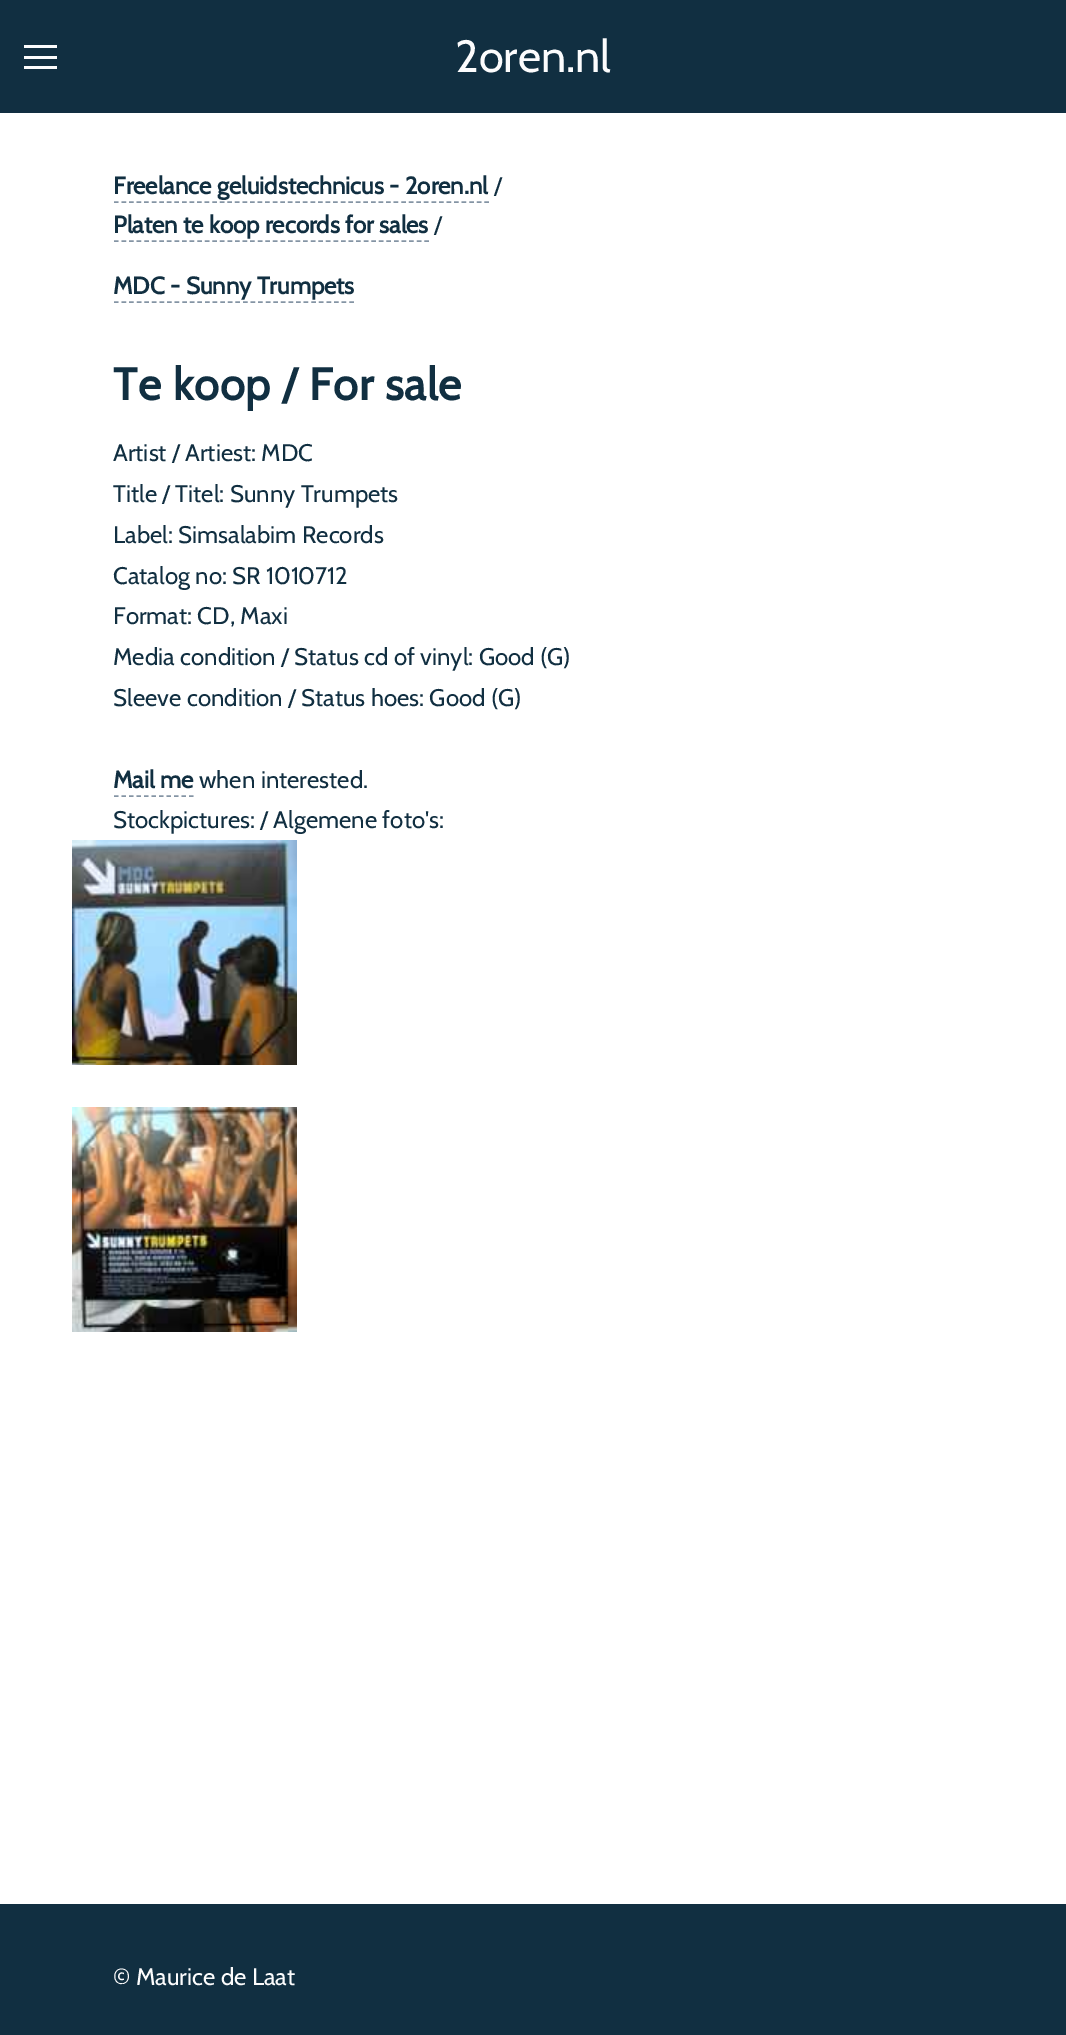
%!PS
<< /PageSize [1066 2035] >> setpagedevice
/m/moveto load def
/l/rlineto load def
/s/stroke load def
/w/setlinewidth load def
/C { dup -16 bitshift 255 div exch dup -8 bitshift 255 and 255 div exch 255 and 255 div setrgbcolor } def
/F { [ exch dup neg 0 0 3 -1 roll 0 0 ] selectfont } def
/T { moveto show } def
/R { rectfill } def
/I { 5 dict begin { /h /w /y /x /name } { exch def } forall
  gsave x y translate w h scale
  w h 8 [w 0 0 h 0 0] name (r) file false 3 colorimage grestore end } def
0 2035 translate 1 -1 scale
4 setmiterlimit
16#FFFFFF C
0 0 1066 2035 R
16#112F41 C
0 0 1066 113 R
16#FCFCFD C
24 45 33 3 R
24 56 33 3 R
24 66 33 3 R
/Cabin-Regular 45 F
(2oren.nl) 455 72 T
/Cabin-Bold 24 F
16#112F41 C
(Freelance geluidstechnicus - 2oren.nl) 113 194 T
16#8494A4 C
1.5 w
[4.5 3.06] 0 setdash
114 202 m 375 0 l s
/Cabin-Regular 24 F
16#112F41 C
(/) 494 194 T
/Cabin-Bold 24 F
(Platen te koop records for sales) 113 233 T
16#8494A4 C
[4.5 3.07] 0 setdash
114 241 m 315 0 l s
/Cabin-Regular 24 F
16#112F41 C
(/) 434 233 T
/Cabin-Bold 24 F
(MDC - Sunny Trumpets) 113 294 T
16#8494A4 C
[4.5 3.09] 0 setdash
114 302 m 240 0 l s
/Cabin-Bold 45 F
16#112F41 C
113 400 m .9 0 (Te koop / For sale) ashow
/Cabin-Regular 24 F
(Artist / Artiest: MDC) 113 461 T
(Title / Titel: Sunny Trumpets) 113 502 T
(Label: Simsalabim Records) 113 543 T
(Catalog no: SR 1010712) 113 584 T
(Format: CD, Maxi) 113 624 T
(Media condition / Status cd of vinyl: Good \(G\)) 113 665 T
(Sleeve condition / Status hoes: Good \(G\)) 113 706 T
/Cabin-Bold 24 F
(Mail me) 113 788 T
16#8494A4 C
[4.5 3] 0 setdash
114 796 m 79.5 0 l s
/Cabin-Regular 24 F
16#112F41 C
(when interested.) 199 788 T
(Stockpictures: / Algemene foto's:) 113 828 T
(1.rgb) 72 840 225 225 I
(2.rgb) 72 1107 225 225 I
0 1904 1066 131 R
16#FCFCFD C
(© Maurice de Laat) 113 1985 T
showpage
